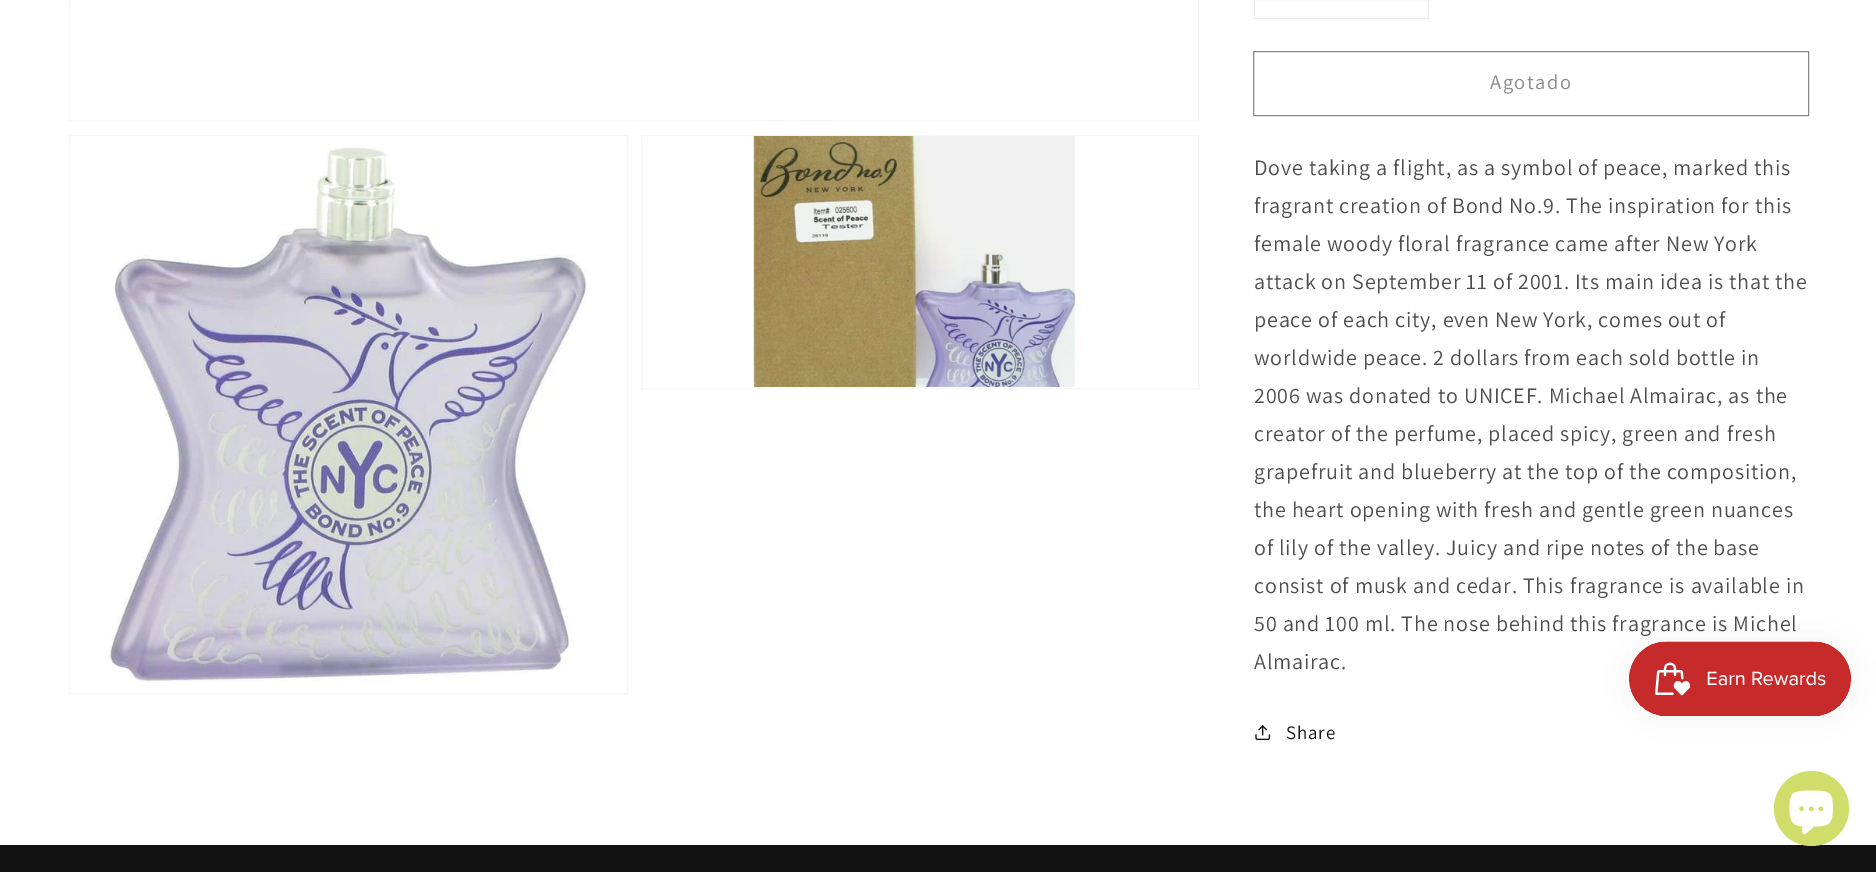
%!PS
<< /PageSize [1876 872] /PageUsesTransparency true >> setpagedevice
/m/moveto load def
/f/fill load def
/C { dup -16 bitshift 255 div exch dup -8 bitshift 255 and 255 div exch 255 and 255 div setrgbcolor } def
/F { [ exch dup neg 0 0 3 -1 roll 0 0 ] selectfont } def
/R { rectfill } def
/A { dup .setfillconstantalpha .setstrokeconstantalpha } def
/O { newpath 0 360 arc closepath } def
/Q { 5 dict begin { /r /h /w /y /x } { exch def } forall
  x r add y moveto x w add y 2 copy h add r arct x w add y h add x 1 index r arct
  x y h add x y r arct x y 2 copy exch w add exch r arct closepath end } def
/S { 12 dict begin { /a /b /q /h /w /y /x } { exch def } forall gsave /was 0 def
  9 -2 -9 { dup b mul 4 div /e exch def 1 sub .425 mul 2.718 exch exp 1 add a .99 .min exch div /now exch def
    1 1 now sub 1 was sub div sub A /was now def
    w h .min e 2 mul add 0 gt { x e sub y e sub w e 2 mul add h e 2 mul add
      q e add b .6 mul add w h .min 2 div e add .min 0 .max Q fill } if } for grestore end } def
/I { 5 dict begin { /h /w /y /x /name } { exch def } forall
  gsave x y translate w h scale
  w h 8 [w 0 0 h 0 0] name (r) file false 3 colorimage grestore end } def
0 .pushpdf14devicefilter
0 872 translate 1 -1 scale
4 setmiterlimit
16#FFFFFF C
0 0 1876 872 R
16#F6F6F6 C
69.5 -.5 1129 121 rectstroke
69.5 135.5 558 558 rectstroke
(1.rgb) 105 145 482 538 I
641.5 135.5 557 253 rectstroke
(2.rgb) 753 135 323 252 I
16#ECECEC C
1254.5 -.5 174 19 rectstroke
16#898989 C
1253.5 51.5 555 64 rectstroke
/Assistant-Regular 20.5 F
1490 89 m 1.5 0 (Agotado) ashow
/Assistant-Regular 22 F
16#4D4D4D C
1254 175 m .83 0 (Dove taking a flight, as a symbol of peace, marked this) ashow
1254 213 m .83 0 (fragrant creation of Bond No.9. The inspiration for this) ashow
1254 251 m .83 0 (female woody floral fragrance came after New York) ashow
1254 289 m .83 0 (attack on September 11 of 2001. Its main idea is that the) ashow
1254 327 m .83 0 (peace of each city, even New York, comes out of) ashow
1254 365 m .83 0 (worldwide peace. 2 dollars from each sold bottle in) ashow
1254 403 m .83 0 (2006 was donated to UNICEF. Michael Almairac, as the) ashow
1254 441 m .83 0 (creator of the perfume, placed spicy, green and fresh) ashow
1254 479 m .83 0 (grapefruit and blueberry at the top of the composition,) ashow
1254 517 m .83 0 (the heart opening with fresh and gentle green nuances) ashow
1254 555 m .83 0 (of lily of the valley. Juicy and ripe notes of the base) ashow
1254 593 m .83 0 (consist of musk and cedar. This fragrance is available in) ashow
1254 631 m .83 0 (50 and 100 ml. The nose behind this fragrance is Michel) ashow
1254 669 m .83 0 (Almairac.) ashow
(3.rgb) 1255 725 16 15 I
/Assistant-Regular 19 F
16#121212 C
1286 739 m .83 0 (Share) ashow
16#000000 C
1629 641 222 75 37.5 15.5 .05 S
(4.rgb) 1629 641 222 75 I
16#121212 C
0 845 1876 27 R
16#CFDE6A C
1811.5 808.5 37.5 O f
(5.rgb) 1789 790 44 45 I
.poppdf14devicefilter showpage
